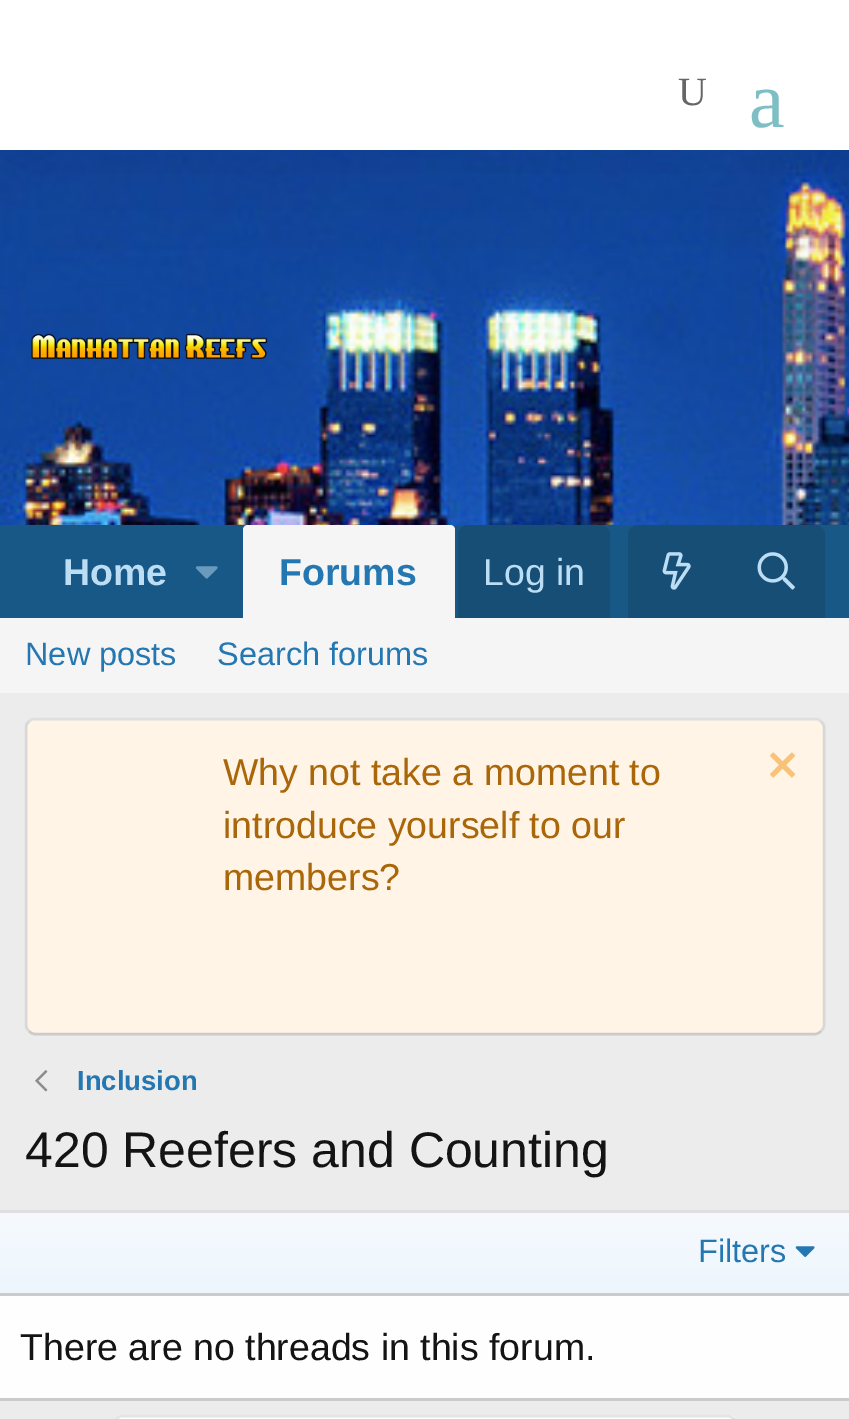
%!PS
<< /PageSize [849 1419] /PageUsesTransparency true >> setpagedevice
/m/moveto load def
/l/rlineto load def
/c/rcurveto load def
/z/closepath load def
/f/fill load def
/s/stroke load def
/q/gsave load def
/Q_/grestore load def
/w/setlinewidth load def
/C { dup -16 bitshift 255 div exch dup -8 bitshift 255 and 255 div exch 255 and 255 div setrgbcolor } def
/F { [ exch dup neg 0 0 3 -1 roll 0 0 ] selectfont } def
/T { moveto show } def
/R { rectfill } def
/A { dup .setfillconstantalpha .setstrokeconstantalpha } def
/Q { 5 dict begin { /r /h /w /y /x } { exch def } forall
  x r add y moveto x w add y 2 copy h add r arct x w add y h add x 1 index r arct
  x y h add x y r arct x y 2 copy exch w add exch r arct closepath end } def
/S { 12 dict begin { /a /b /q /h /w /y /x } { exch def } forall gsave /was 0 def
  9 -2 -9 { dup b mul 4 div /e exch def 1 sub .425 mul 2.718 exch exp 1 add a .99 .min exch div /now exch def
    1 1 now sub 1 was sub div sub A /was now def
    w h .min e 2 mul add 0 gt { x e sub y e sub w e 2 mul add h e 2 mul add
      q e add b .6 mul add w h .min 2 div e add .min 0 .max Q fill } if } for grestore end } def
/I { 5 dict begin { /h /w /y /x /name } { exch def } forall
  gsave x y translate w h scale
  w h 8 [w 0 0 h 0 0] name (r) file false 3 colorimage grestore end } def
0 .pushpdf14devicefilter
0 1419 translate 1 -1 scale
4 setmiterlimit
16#FFFFFF C
0 0 849 1419 R
(1.rgb) 0 150 849 375 I
(2.rgb) 31 333 237 26 I
16#000000 C
0 -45 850 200 0 75 .13 S
16#FFFFFF C
0 0 849 150 R
/LiberationSerif-Regular 40 F
16#666666 C
(U) 678 105 T
/LiberationSerif-Regular 80 F
16#7EBEC5 C
(a) 749 127 T
16#185886 C
0 525 849 93 R
/LiberationSans-Bold 37.5 F
16#BCDEF5 C
(Home) 63 585 T
(3.rgb) 195 566 23 13 I
16#F5F5F5 C
248 525 m 202 0 l 3 0 5 2 5 5 c 0 88 l -212 0 l 0 -88 l 0 -3 2 -5 5 -5 c z f
16#2577B1 C
(Forums) 279 585 T
16#174E75 C
468 525 m 132 0 l 5.5 0 10 4.5 10 10 c 0 83 l -152 0 l 0 -83 l 0 -5.5 4.5 -10 10 -10 c z f
/LiberationSans-Regular 37.5 F
16#BCDEF5 C
(Log in) 483 585 T
16#174E75 C
638 525 m 177 0 l 5.5 0 10 4.5 10 10 c 0 83 l -197 0 l 0 -83 l 0 -5.5 4.5 -10 10 -10 c z f
(4.rgb) 662 552 29 38 I
(5.rgb) 757 552 38 38 I
16#F5F5F5 C
0 618 849 75 R
/LiberationSans-Regular 32.5 F
16#2577B1 C
(New posts) 25 665 T
(Search forums) 217 665 T
16#ECECEC C
0 693 849 726 R
16#FFF4E5 C
25 718 800 317 10 Q f
16#DFDFDF C
2.5 w
29 721.5 m 1.5 -2 3.5 -2.5 6 -2.5 c 780 0 l 2.5 0 4.5 .5 6 2.5 c s
16#D8D8D8 C
821 721.5 m 2 1.5 3 3.5 3 6 c 0 297.5 l 0 2.5 -1 4.5 -3 6 c s
16#CBCBCB C
821 1031 m -1.5 2 -3.5 3 -6 3 c -780 0 l -2.5 0 -4.5 -1 -6 -3 c s
16#D8D8D8 C
29 1031 m -2 -1.5 -3 -3.5 -3 -6 c 0 -297.5 l 0 -2.5 1 -4.5 3 -6 c s
/LiberationSans-Regular 37.5 F
16#AA6709 C
(Why not take a moment to) 223 785 T
(6.rgb) 770 752 26 26 I
(introduce yourself to our) 223 838 T
(members?) 223 890 T
(7.rgb) 35 1070 13 22 I
/LiberationSans-Bold 27.5 F
16#2577B1 C
(Inclusion) 77 1090 T
/LiberationSans-Regular 50 F
16#141414 C
(420 Reefers and Counting) 25 1167 T
16#FEFEFE C
0 1296 849 102 R
16#DFDFDF C
0 1210 849 3 R
16#CBCBCB C
0 1398 849 3 R
q 0 1213 m 849 0 l 0 80 l -849 0 l z clip newpath
<< /ShadingType 2 /ColorSpace /DeviceRGB /Coords [425 1293 425 1213] /Extend [true true] /Function << /FunctionType 2 /Domain [0 1] /C0 [.929 .965 .992] /C1 [.965 .98 .996] /N 1 >> >> shfill Q_
0 1293 849 3 R
/LiberationSans-Regular 32.5 F
16#2577B1 C
(Filters) 698 1262 T
(8.rgb) 795 1246 20 11 I
/LiberationSans-Regular 37.5 F
16#141414 C
(There are no threads in this forum.) 20 1360 T
16#FEFEFE C
113 1415 625 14 10 Q f
16#CBCBCB C
733.5 1419 m 2 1.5 2.5 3.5 2.5 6 c 0 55 l 0 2.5 -.5 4.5 -2.5 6 c -1.5 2 -3.5 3 -6 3 c -605 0 l -2.5 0 -4.5 -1 -6 -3 c s
16#E5E5E5 C
116.5 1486 m -2 -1.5 -2.5 -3.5 -2.5 -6 c 0 -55 l 0 -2.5 .5 -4.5 2.5 -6 c 1.5 -2 3.5 -3 6 -3 c 605 0 l 2.5 0 4.5 1 6 3 c s
.poppdf14devicefilter showpage
